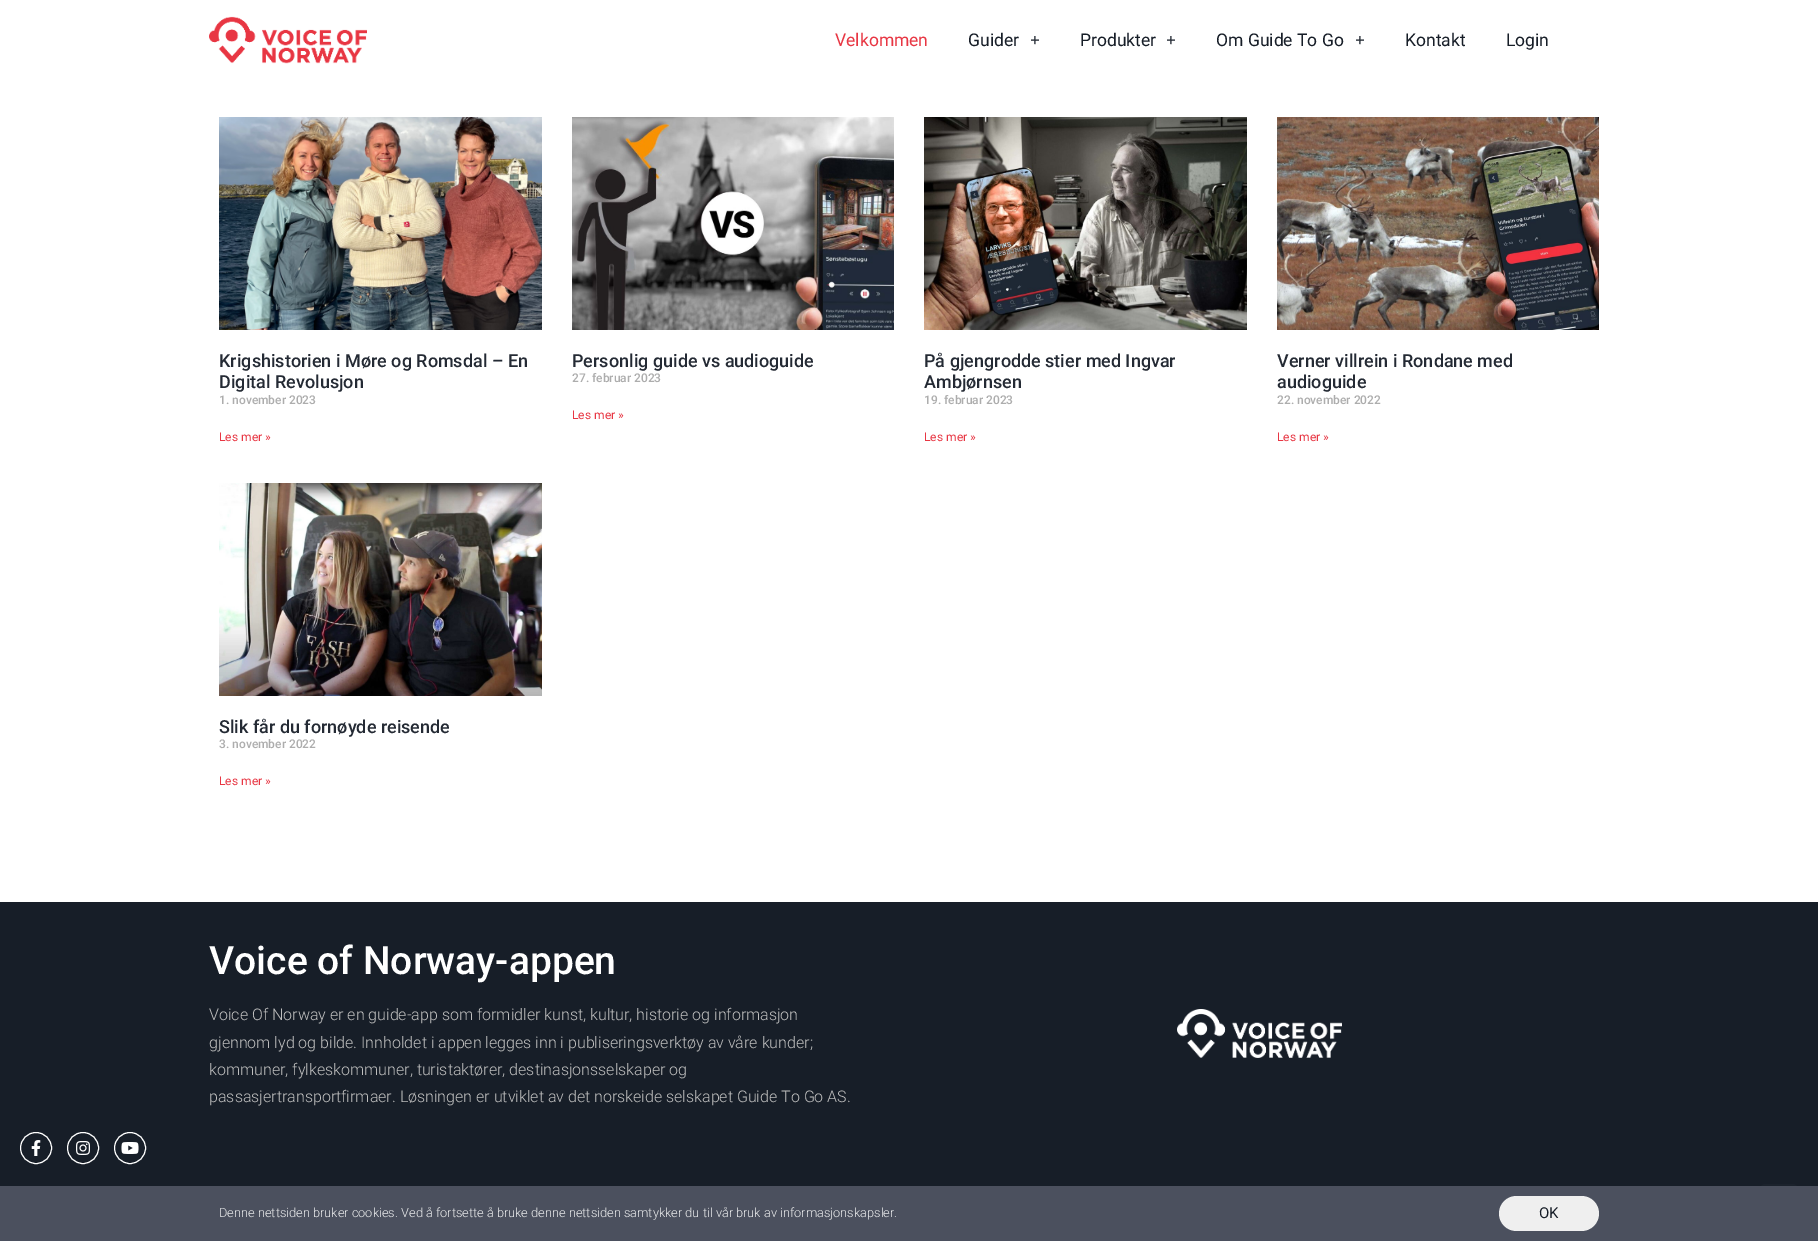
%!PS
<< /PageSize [1818 1241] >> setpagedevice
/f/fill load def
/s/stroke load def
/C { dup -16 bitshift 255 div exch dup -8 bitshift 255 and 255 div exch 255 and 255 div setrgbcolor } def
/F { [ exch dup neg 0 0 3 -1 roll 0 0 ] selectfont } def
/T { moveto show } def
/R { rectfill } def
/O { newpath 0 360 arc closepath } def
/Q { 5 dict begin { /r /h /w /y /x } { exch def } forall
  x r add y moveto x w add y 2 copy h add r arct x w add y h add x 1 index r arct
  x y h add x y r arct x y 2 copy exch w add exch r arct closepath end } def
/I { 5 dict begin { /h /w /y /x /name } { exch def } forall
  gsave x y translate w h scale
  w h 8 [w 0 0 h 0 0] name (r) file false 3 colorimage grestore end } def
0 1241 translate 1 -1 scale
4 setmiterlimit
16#FFFFFF C
0 0 1818 1241 R
(1.rgb) 209 16 158 48 I
/Roboto-Regular 17.5 F
16#E83643 C
(Velkommen) 835 46 T
16#171E28 C
(Guider) 968 46 T
/LiberationSerif-Bold 17.5 F
(+) 1030 46 T
/Roboto-Regular 17.5 F
(Produkter) 1080 46 T
/LiberationSerif-Bold 17.5 F
(+) 1166 46 T
/Roboto-Regular 17.5 F
(Om Guide To Go) 1216 46 T
/LiberationSerif-Bold 17.5 F
(+) 1355 46 T
/Roboto-Regular 17.5 F
(Kontakt) 1405 46 T
(Login) 1506 46 T
(2.rgb) 219 117 323 213 I
/Roboto-Medium 18 F
16#242A34 C
(Krigshistorien i Møre og Romsdal – En) 219 367 T
(Digital Revolusjon) 219 388 T
/Roboto-Medium 12 F
16#ADADAD C
(1. november 2023) 219 404 T
/Roboto-Regular 12 F
16#E83643 C
(Les mer ») 219 441 T
(3.rgb) 572 117 322 213 I
/Roboto-Medium 18 F
16#242A34 C
(Personlig guide vs audioguide) 572 367 T
/Roboto-Medium 12 F
16#ADADAD C
(27. februar 2023) 572 382 T
/Roboto-Regular 12 F
16#E83643 C
(Les mer ») 572 419 T
(4.rgb) 924 117 323 213 I
/Roboto-Medium 18 F
16#242A34 C
(På gjengrodde stier med Ingvar) 924 367 T
(Ambjørnsen) 924 388 T
/Roboto-Medium 12 F
16#ADADAD C
(19. februar 2023) 924 404 T
/Roboto-Regular 12 F
16#E83643 C
(Les mer ») 924 441 T
(5.rgb) 1277 117 322 213 I
/Roboto-Medium 18 F
16#242A34 C
(Verner villrein i Rondane med) 1277 367 T
(audioguide) 1277 388 T
/Roboto-Medium 12 F
16#ADADAD C
(22. november 2022) 1277 404 T
/Roboto-Regular 12 F
16#E83643 C
(Les mer ») 1277 441 T
(6.rgb) 219 483 323 213 I
/Roboto-Medium 18 F
16#242A34 C
(Slik får du fornøyde reisende) 219 733 T
/Roboto-Medium 12 F
16#ADADAD C
(3. november 2022) 219 748 T
/Roboto-Regular 12 F
16#E83643 C
(Les mer ») 219 785 T
16#171E28 C
0 902 1818 284 R
/Roboto-Medium 39 F
16#FFFFFF C
(Voice of Norway-appen) 209 974 T
/Roboto-Light 16 F
16#BFBFBF C
(Voice Of Norway er en guide-app som formidler kunst, kultur, historie og informasjon) 209 1020 T
(gjennom lyd og bilde. Innholdet i appen legges inn i publiseringsverktøy av våre kunder;) 209 1048 T
(kommuner, fylkeskommuner, turistaktører, destinasjonsselskaper og) 209 1075 T
(passasjertransportfirmaer. Løsningen er utviklet av det norskeide selskapet Guide To Go AS.) 209 1102 T
(7.rgb) 1177 1009 165 49 I
16#FFFFFF C
36 1148 15.5 O s
(8.rgb) 31 1140 10 16 I
83 1148 15.5 O s
(9.rgb) 76 1141 14 14 I
130 1148 15.5 O s
(10.rgb) 121 1142 18 12 I
16#1B222C C
1760 1184 38 38 5 Q f
16#4B505E C
0 1186 1818 55 R
/Roboto-Light 12.8 F
16#EBECED C
(Denne nettsiden bruker cookies. Ved å fortsette å bruke denne nettsiden samtykker du til vår bruk av informasjonskapsler.) 219 1217 T
16#EFEFEF C
1499 1196 100 35 17.5 Q f
/Roboto-Regular 15 F
16#171E28 C
(OK) 1539 1218 T
showpage
